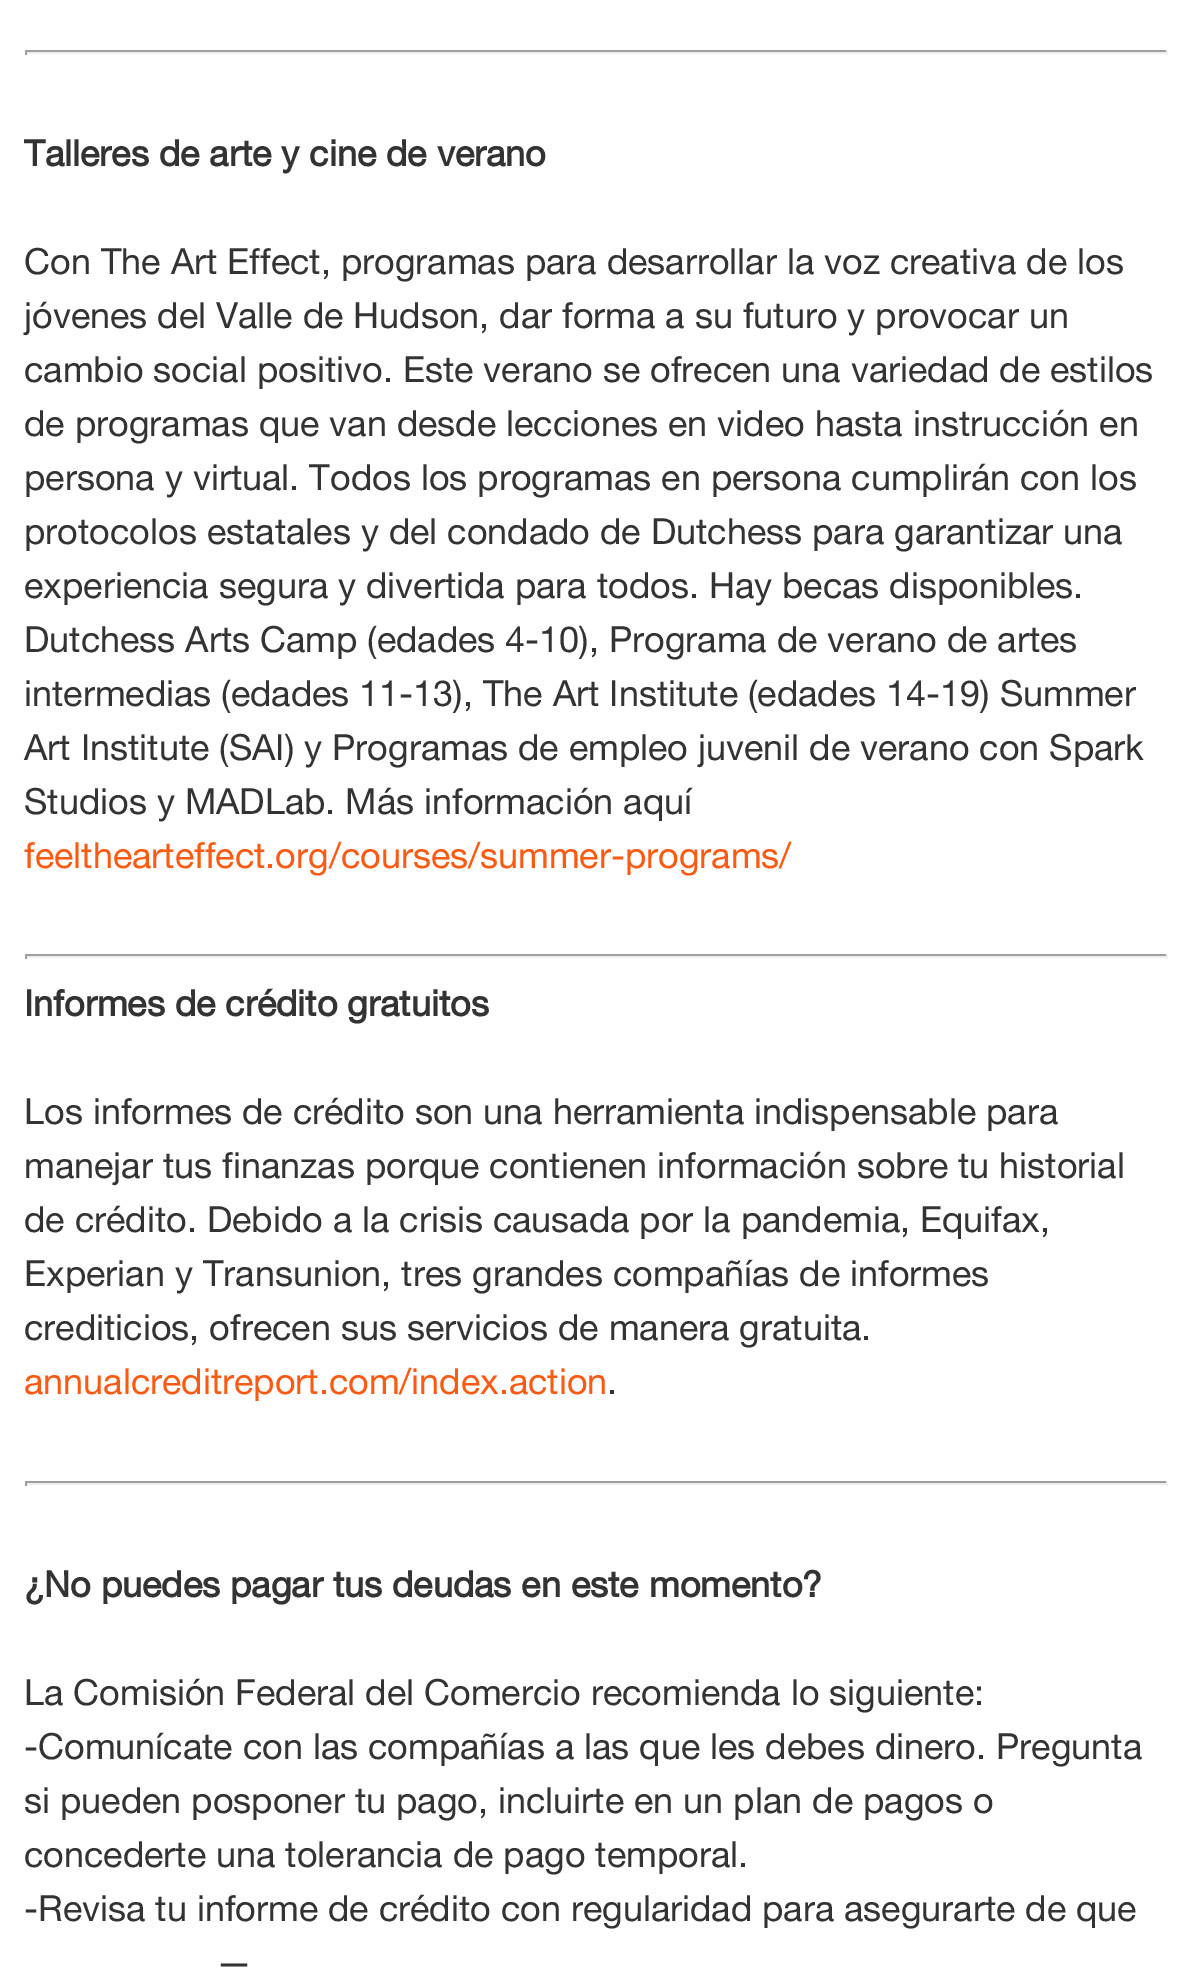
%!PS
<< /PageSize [1202 1968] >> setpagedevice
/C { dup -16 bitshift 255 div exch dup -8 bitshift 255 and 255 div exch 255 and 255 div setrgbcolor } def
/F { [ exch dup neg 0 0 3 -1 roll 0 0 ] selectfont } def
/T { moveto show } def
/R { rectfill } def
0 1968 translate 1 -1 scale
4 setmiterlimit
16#FFFFFF C
0 0 1202 1968 R
16#9F9F9F C
25 50 1143 2 R
16#EEEEEE C
1166 50 2 5 R
25 52 1143 2 R
16#9F9F9F C
25 50 2 5 R
/HelveticaNeue-Bold 36 F
16#333333 C
(Talleres de arte y cine de verano) 24 166 T
/HelveticaNeue-Regular 36 F
(Con The Art Effect, programas para desarrollar la voz creativa de los) 24 274 T
(jóvenes del Valle de Hudson, dar forma a su futuro y provocar un) 24 328 T
(cambio social positivo. Este verano se ofrecen una variedad de estilos) 24 382 T
(de programas que van desde lecciones en video hasta instrucción en) 24 436 T
(persona y virtual. Todos los programas en persona cumplirán con los) 24 490 T
(protocolos estatales y del condado de Dutchess para garantizar una) 24 544 T
(experiencia segura y divertida para todos. Hay becas disponibles.) 24 598 T
(Dutchess Arts Camp \(edades 4-10\), Programa de verano de artes) 24 652 T
(intermedias \(edades 11-13\), The Art Institute \(edades 14-19\) Summer) 24 706 T
(Art Institute \(SAI\) y Programas de empleo juvenil de verano con Spark) 24 760 T
(Studios y MADLab. Más información aquí) 24 814 T
16#FB5A13 C
(feelthearteffect.org/courses/summer-programs/) 24 868 T
16#9F9F9F C
25 954 1143 2 R
16#EEEEEE C
1166 954 2 5 R
25 956 1143 2 R
16#9F9F9F C
25 954 2 5 R
/HelveticaNeue-Bold 36 F
16#333333 C
(Informes de crédito gratuitos) 24 1016 T
/HelveticaNeue-Regular 36 F
(Los informes de crédito son una herramienta indispensable para) 24 1124 T
(manejar tus finanzas porque contienen información sobre tu historial) 24 1178 T
(de crédito. Debido a la crisis causada por la pandemia, Equifax,) 24 1232 T
(Experian y Transunion, tres grandes compañías de informes) 24 1286 T
(crediticios, ofrecen sus servicios de manera gratuita.) 24 1340 T
16#FB5A13 C
(annualcreditreport.com/index.action) 24 1394 T
16#333333 C
(.) 607 1394 T
16#9F9F9F C
25 1481 1143 2 R
16#EEEEEE C
1166 1481 2 5 R
25 1483 1143 2 R
16#9F9F9F C
25 1481 2 5 R
/HelveticaNeue-Bold 36 F
16#333333 C
(¿No puedes pagar tus deudas en este momento?) 24 1597 T
/HelveticaNeue-Regular 36 F
(La Comisión Federal del Comercio recomienda lo siguiente:) 24 1705 T
(-Comunícate con las compañías a las que les debes dinero. Pregunta) 24 1759 T
(si pueden posponer tu pago, incluirte en un plan de pagos o) 24 1813 T
(concederte una tolerancia de pago temporal.) 24 1867 T
(-Revisa tu informe de crédito con regularidad para asegurarte de que) 24 1921 T
(—) 216 1975 T
showpage
